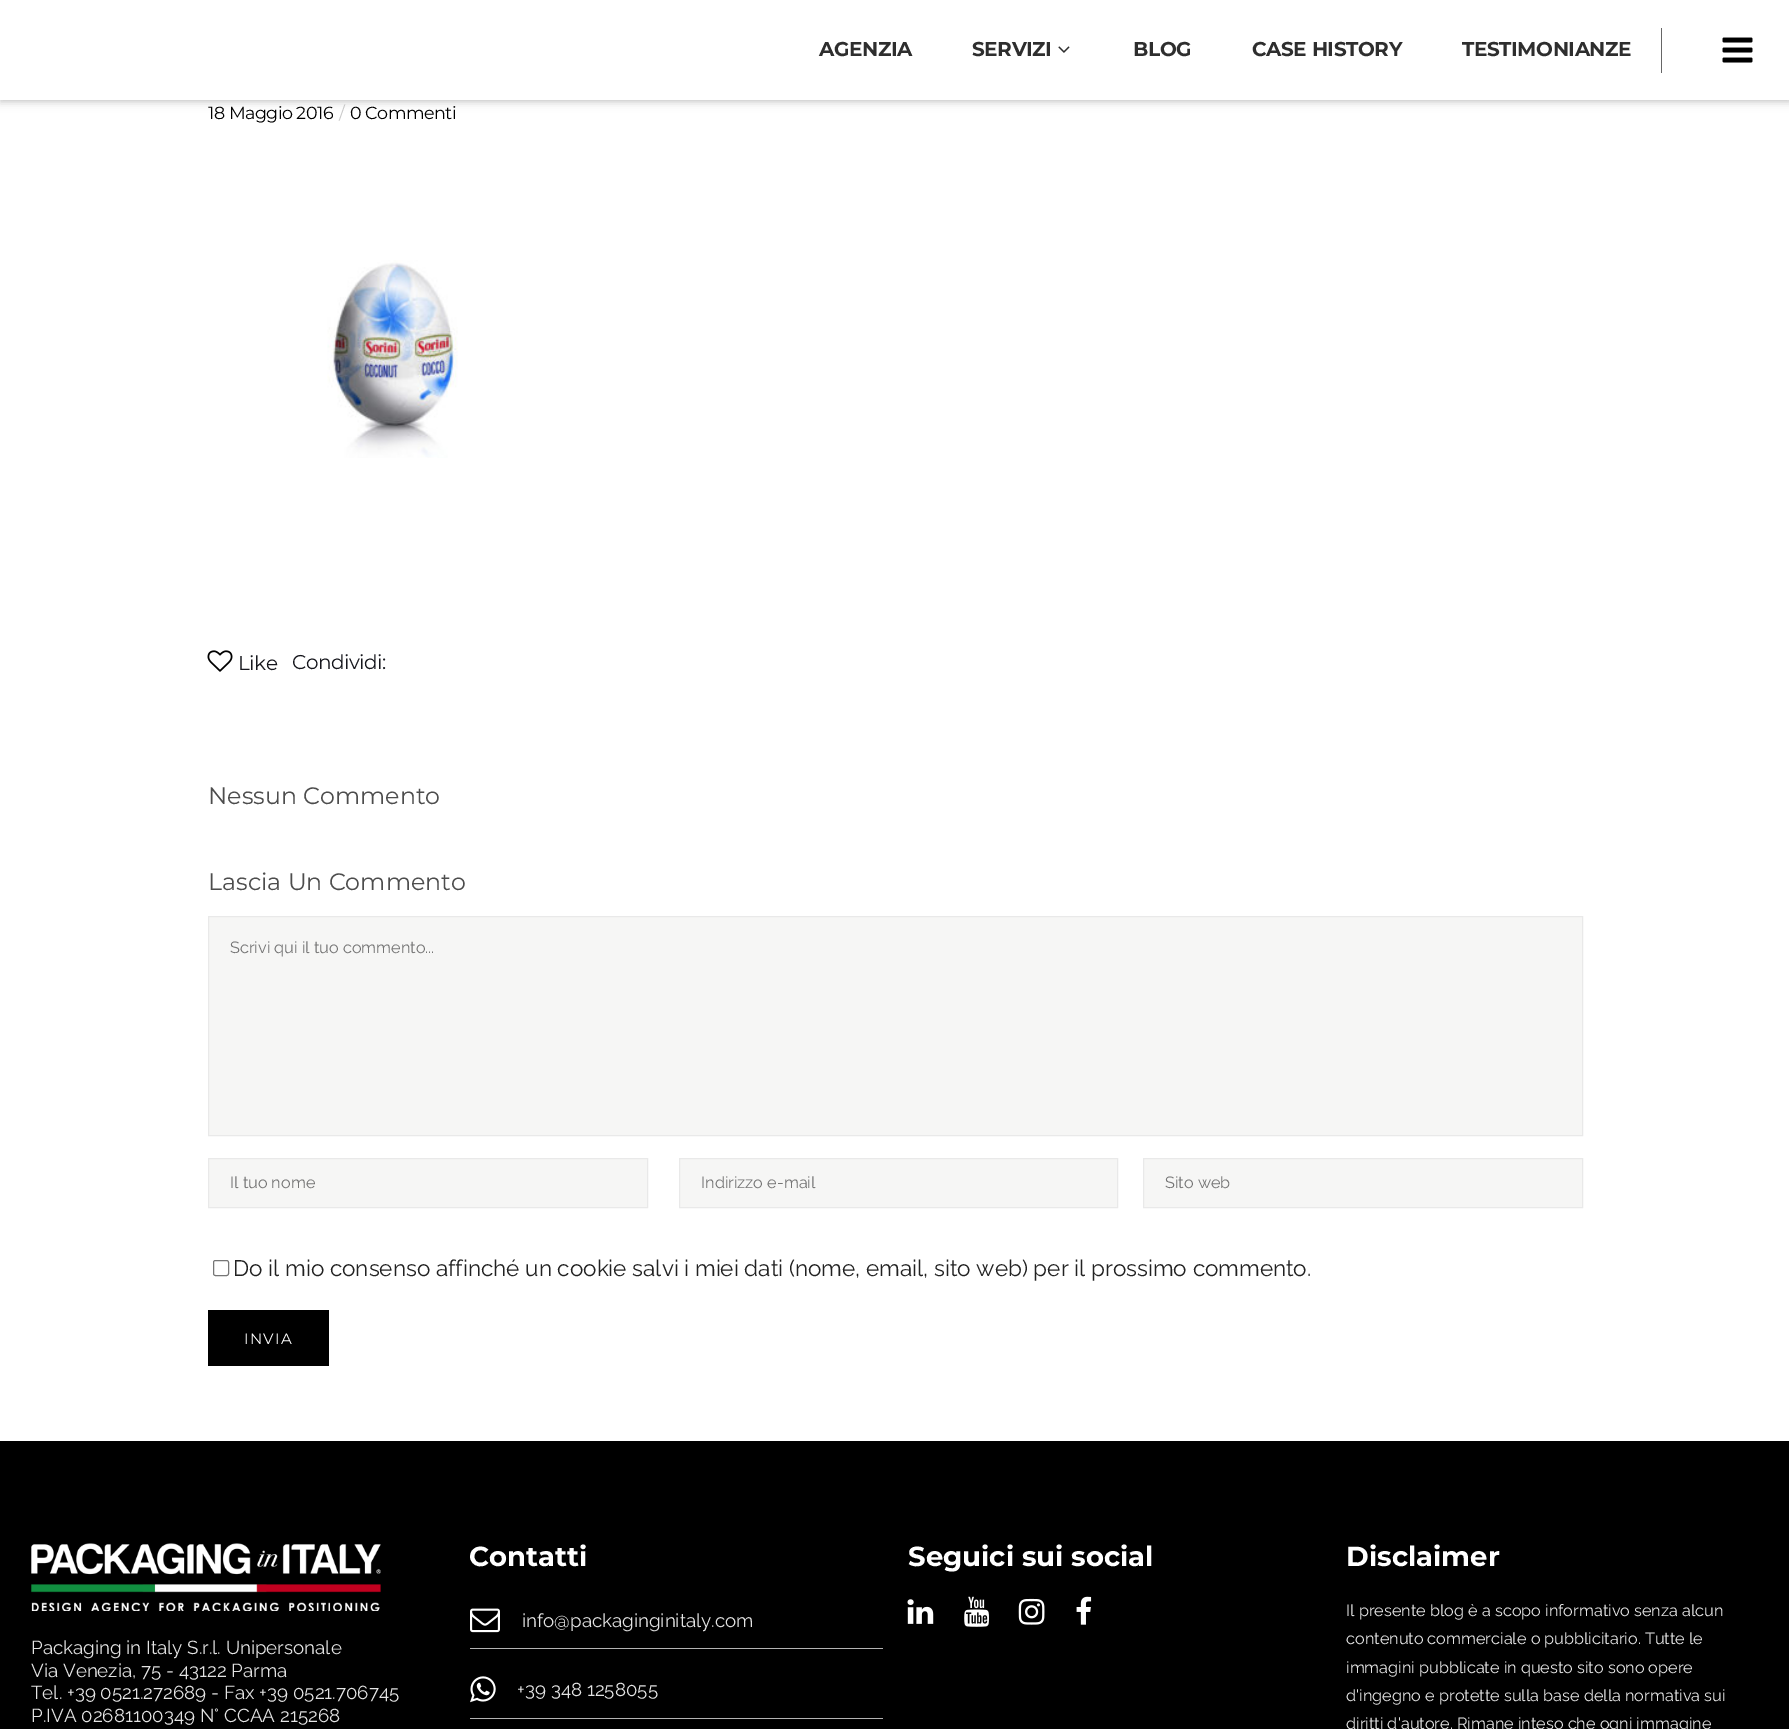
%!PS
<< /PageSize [1789 1729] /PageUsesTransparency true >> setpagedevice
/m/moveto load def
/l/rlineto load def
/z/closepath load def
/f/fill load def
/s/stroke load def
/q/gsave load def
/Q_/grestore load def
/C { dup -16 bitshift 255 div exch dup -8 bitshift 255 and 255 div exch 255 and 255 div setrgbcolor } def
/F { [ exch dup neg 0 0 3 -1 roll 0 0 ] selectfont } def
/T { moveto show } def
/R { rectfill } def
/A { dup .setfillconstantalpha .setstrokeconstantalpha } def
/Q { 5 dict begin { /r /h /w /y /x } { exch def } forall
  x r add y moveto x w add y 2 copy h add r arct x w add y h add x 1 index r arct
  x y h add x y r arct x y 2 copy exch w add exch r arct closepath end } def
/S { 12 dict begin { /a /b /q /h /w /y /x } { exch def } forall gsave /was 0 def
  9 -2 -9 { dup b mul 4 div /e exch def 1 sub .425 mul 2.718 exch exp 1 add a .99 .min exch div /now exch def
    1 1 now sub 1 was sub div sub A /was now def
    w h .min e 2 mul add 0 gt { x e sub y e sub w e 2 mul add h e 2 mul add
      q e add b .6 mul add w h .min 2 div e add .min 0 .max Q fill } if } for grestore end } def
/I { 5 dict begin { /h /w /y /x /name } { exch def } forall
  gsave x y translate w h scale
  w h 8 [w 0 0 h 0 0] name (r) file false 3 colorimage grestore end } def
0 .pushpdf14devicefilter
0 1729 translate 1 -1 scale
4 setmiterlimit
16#FFFFFF C
0 0 1789 1729 R
16#000000 C
0 4 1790 100 0 4 .11 S
0 1 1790 100 0 2 .11 S
16#FFFFFF C
0 0 1789 100 R
/Montserrat-Bold 20 F
16#2E2E2E C
819 56 m -.4 0 (AGENZIA) ashow
972 56 m -.4 0 (SERVIZI) ashow
(1.rgb) 1058 46 12 7 I
1133 56 m -.4 0 (BLOG) ashow
1252 56 m -.4 0 (CASE HISTORY) ashow
16#666666 C
1661 28 1 45 R
16#2E2E2E C
1462 56 m -.4 0 (TESTIMONIANZE) ashow
(2.rgb) 1722 37 31 26 I
/Montserrat-Regular 17.5 F
16#000000 C
208 119 m -.5 0 (18 Maggio 2016) ashow
16#C9C9C9 C
339 119 m -.5 0 (/) ashow
16#000000 C
350 119 m -.5 0 (0 Commenti) ashow
(3.rgb) 327 260 131 198 I
(4.rgb) 207 650 26 22 I
/Montserrat-Regular 20 F
16#16171D C
238 670 m -.5 0 (Like) ashow
292 669 m -.5 0 (Condividi:) ashow
/Montserrat-Regular 23.75 F
16#4D4D4D C
(Nessun Commento) 208 804 T
(Lascia Un Commento) 208 890 T
16#F6F6F5 C
208.5 916.5 m 1374 0 l 0 219 l -1374 0 l z q f Q_
16#E9E9E9 C
s
/Raleway-Regular 16.25 F
16#757575 C
(Scrivi qui il tuo commento...) 230 953 T
16#F6F6F5 C
208.5 1158.5 m 439 0 l 0 49 l -439 0 l z q f Q_
16#E9E9E9 C
s
16#757575 C
(Il tuo nome) 230 1188 T
16#F6F6F5 C
679.5 1158.5 m 438 0 l 0 49 l -438 0 l z q f Q_
16#E9E9E9 C
s
16#757575 C
(Indirizzo e-mail) 701 1188 T
16#F6F6F5 C
1143.5 1158.5 m 439 0 l 0 49 l -439 0 l z q f Q_
16#E9E9E9 C
s
16#757575 C
(Sito web) 1165 1188 T
16#767676 C
213.5 1260.5 15 15 2 Q s
/Raleway-Regular 22.5 F
16#222222 C
(Do il mio consenso affinché un cookie salvi i miei dati \(nome, email, sito web\) per il prossimo commento.) 233 1276 T
16#000000 C
208 1310 121 56 R
/Montserrat-Regular 15 F
16#FFFFFF C
244 1344 m 1.25 0 (INVIA) ashow
16#000000 C
0 1441 1789 288 R
(5.rgb) 31 1543 350 68 I
/Raleway-Regular 18.75 F
16#E3E3E3 C
(Packaging in Italy S.r.l. Unipersonale) 31 1654 T
(Via Venezia, 75 - 43122 Parma) 31 1677 T
(Tel. +39 0521.272689 - Fax +39 0521.706745) 31 1699 T
(P.IVA 02681100349 N° CCAA 215268) 31 1722 T
/Montserrat-Bold 27.5 F
16#FFFFFF C
(Contatti) 469 1566 T
(6.rgb) 470 1608 30 25 I
/Raleway-Regular 18.75 F
16#E3E3E3 C
(info@packaginginitaly.com) 522 1627 T
16#B2B2B2 C
470 1648 413 1 R
(7.rgb) 470 1676 26 27 I
16#E3E3E3 C
(+39 348 1258055) 517 1696 T
16#B2B2B2 C
470 1718 413 1 R
/Montserrat-Bold 27.5 F
16#FFFFFF C
(Seguici sui social) 908 1566 T
(8.rgb) 907 1599 27 25 I
(9.rgb) 964 1596 25 31 I
(10.rgb) 1018 1598 27 27 I
(11.rgb) 1076 1596 16 29 I
(Disclaimer) 1346 1566 T
/Raleway-Regular 16.25 F
16#E3E3E3 C
(Il presente blog è a scopo informativo senza alcun) 1346 1616 T
(contenuto commerciale o pubblicitario. Tutte le) 1346 1644 T
(immagini pubblicate in questo sito sono opere) 1346 1673 T
(d'ingegno e protette sulla base della normativa sui) 1346 1701 T
(diritti d'autore. Rimane inteso che ogni immagine) 1346 1729 T
.poppdf14devicefilter showpage
